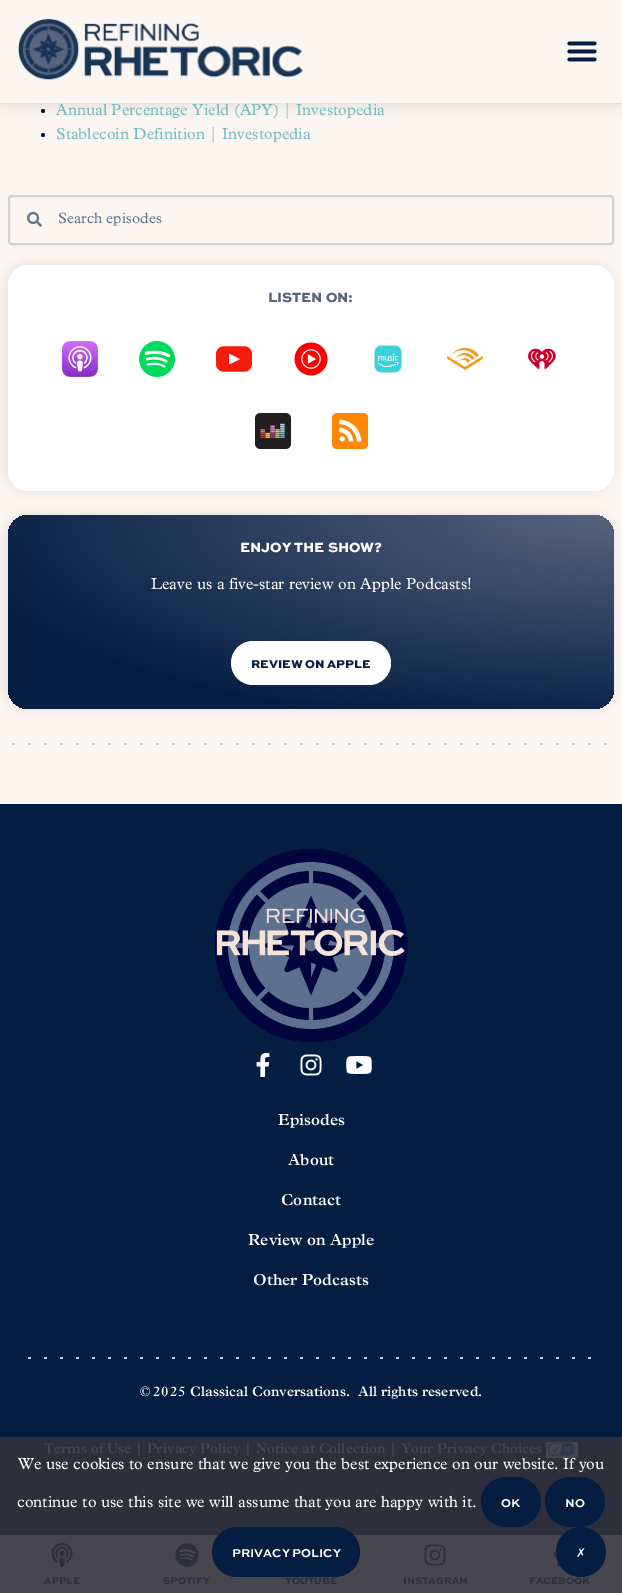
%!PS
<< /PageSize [622 1593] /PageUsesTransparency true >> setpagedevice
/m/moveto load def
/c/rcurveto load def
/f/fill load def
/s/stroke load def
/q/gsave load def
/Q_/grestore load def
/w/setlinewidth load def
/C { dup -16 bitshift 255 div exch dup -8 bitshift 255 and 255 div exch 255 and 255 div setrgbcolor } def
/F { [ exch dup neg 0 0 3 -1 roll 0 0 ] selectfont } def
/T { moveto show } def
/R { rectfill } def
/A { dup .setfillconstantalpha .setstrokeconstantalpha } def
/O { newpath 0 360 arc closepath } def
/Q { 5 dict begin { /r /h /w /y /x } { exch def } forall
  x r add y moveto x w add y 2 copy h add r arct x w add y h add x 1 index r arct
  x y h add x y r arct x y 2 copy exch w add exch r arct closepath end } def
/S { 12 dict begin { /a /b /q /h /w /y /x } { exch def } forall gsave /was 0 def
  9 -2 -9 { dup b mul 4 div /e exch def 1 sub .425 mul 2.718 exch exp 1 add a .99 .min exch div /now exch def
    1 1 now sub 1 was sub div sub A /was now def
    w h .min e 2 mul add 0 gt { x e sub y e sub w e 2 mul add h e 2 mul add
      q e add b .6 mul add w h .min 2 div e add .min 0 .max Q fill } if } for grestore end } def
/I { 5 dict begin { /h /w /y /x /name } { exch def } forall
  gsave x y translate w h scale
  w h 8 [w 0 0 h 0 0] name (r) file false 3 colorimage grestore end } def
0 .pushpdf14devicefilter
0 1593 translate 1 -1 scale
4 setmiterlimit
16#FBF6F2 C
0 0 622 1593 R
16#46464C C
0 1535 622 58 R
16#041E42 C
43 111 2 O f
16#000000 C
1 -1 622 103 0 8.5 .15 S
16#FBF6F2 C
0 0 622 103 R
(1.rgb) 18 18 286 62 I
(2.rgb) 567 41 30 21 I
/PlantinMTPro-Regular 16 F
16#75BABF C
(Annual Percentage Yield \(APY\) | Investopedia) 56 115 T
16#041E42 C
43 135 2 O f
16#75BABF C
(Stablecoin Definition | Investopedia) 56 139 T
16#CDD2D9 C
2 w
9 196 604 48 3 Q s
(3.rgb) 27 211 15 16 I
/PlantinMTPro-Regular 15 F
16#677488 C
(Search episodes) 58 223 T
16#000000 C
6 265 606 226 20 5 .1 S
16#FFFFFF C
8 265 606 226 20 Q f
/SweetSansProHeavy-Black 14 F
16#59637E C
(LISTEN ON:) 268 302 T
(4.rgb) 62 341 36 36 I
(5.rgb) 139 341 36 36 I
(6.rgb) 216 346 36 26 I
(7.rgb) 294 342 34 34 I
(8.rgb) 374 345 28 28 I
(9.rgb) 447 347 36 23 I
(10.rgb) 528 348 28 22 I
(11.rgb) 255 413 36 36 I
16#FF8800 C
332 413 36 36 5 Q f
16#FFFFFF C
342.2 438.8 2.5 O f
4.2 w
339.5 430 m 6.5 0 11.5 5 11.5 11.5 c 359 441.5 m 0 -11 -8.5 -19.5 -19.5 -19.5 c s
16#000000 C
6 515 606 194 20 5 .1 S
q 8 515 606 194 20 Q clip newpath 614 515 translate 857 274 scale
<< /ShadingType 3 /ColorSpace /DeviceRGB /Coords [0 0 0 0 0 1] /Extend [true true] /Function << /FunctionType 3 /Domain [0 1] /Functions [<< /FunctionType 2 /Domain [0 1] /C0 [.349 .388 .494] /C1 [.016 .118 .259] /N 1 >> << /FunctionType 2 /Domain [0 1] /C0 [.016 .118 .259] /C1 [.016 .118 .259] /N 1 >>] /Bounds [.8] /Encode [0 1 0 1] >> >> shfill Q_
16#FFFFFF C
(ENJOY THE SHOW?) 240 552 T
/PlantinMTPro-Regular 16 F
(Leave us a five-star review on Apple Podcasts!) 151 589 T
231 641 160 44 22 Q f
/SweetSansProHeavy-Black 12 F
16#041E42 C
(REVIEW ON APPLE) 251 668 T
(12.rgb) 12 743 595 2 I
0 804 622 633 R
(13.rgb) 214 848 194 195 I
(14.rgb) 256 1053 14 24 I
(15.rgb) 300 1054 22 22 I
(16.rgb) 346 1056 26 18 I
/PlantinMTPro-SemiBold 16 F
16#FFFFFF C
(Episodes) 278 1125 T
(About) 288 1165 T
(Contact) 281 1205 T
(Review on Apple) 248 1245 T
(Other Podcasts) 253 1285 T
(17.rgb) 28 1357 563 2 I
16#2D303B C
0 1437 622 98 R
/PlantinMTPro-SemiBold 14 F
16#FFFFFF C
(©) 140 1396 T
153 1396 m 1 0 (2025) ashow
(Classical Conversations.) 190 1396 T
(All rights reserved.) 358 1396 T
16#47474E C
(Terms of Use | Privacy Policy | Notice at Collection | Your Privacy Choices) 44 1453 T
(18.rgb) 546 1442 32 16 I
(19.rgb) 51 1543 22 24 I
/SweetSansProHeavy-Black 10 F
16#2D303B C
(APPLE) 44 1584 T
(20.rgb) 175 1543 24 24 I
(SPOTIFY) 163 1584 T
(YOUTUBE) 285 1584 T
(21.rgb) 424 1544 22 22 I
(INSTAGRAM) 403 1584 T
(22.rgb) 553 1552 8 15 I
(FACEBOOK) 529 1584 T
/PlantinMTPro-Regular 16 F
16#FFFFFF C
(We use cookies to ensure that we give you the best experience on our website. If you) 18 1469 T
(continue to use this site we will assume that you are happy with it.) 17 1507 T
16#041E42 C
481 1477 60 50 25 Q f
/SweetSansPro-Bold 12 F
16#FFFFFF C
(OK) 501 1507 T
16#041E42 C
545 1477 60 50 25 Q f
16#FFFFFF C
(NO) 565 1507 T
16#041E42 C
212 1527 148 50 25 Q f
16#FFFFFF C
(PRIVACY POLICY) 232 1557 T
16#041E42 C
581 1552 25 O f
/DejaVuSans-Regular 12 F
16#FFFFFF C
(✗) 576 1557 T
.poppdf14devicefilter showpage
